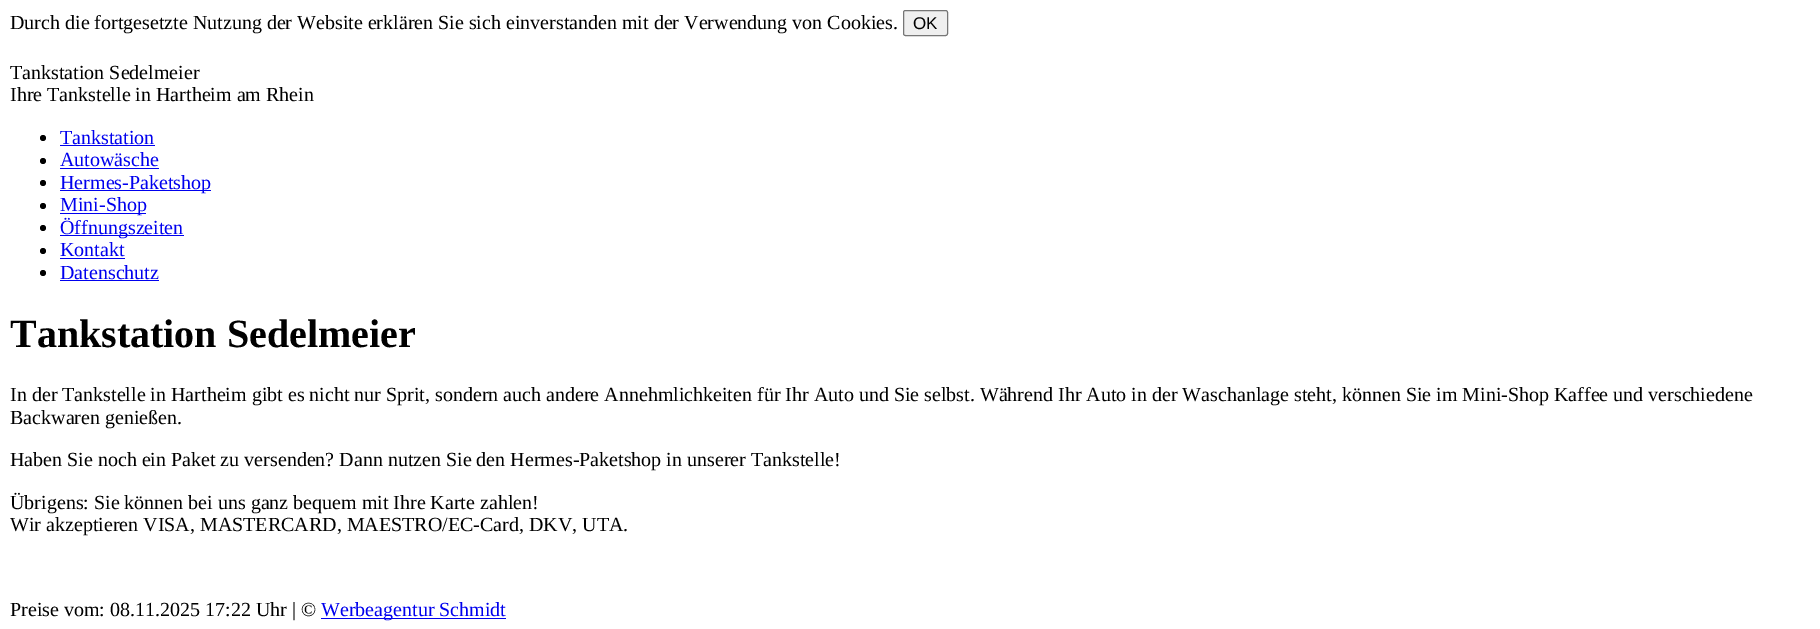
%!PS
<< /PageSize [1820 629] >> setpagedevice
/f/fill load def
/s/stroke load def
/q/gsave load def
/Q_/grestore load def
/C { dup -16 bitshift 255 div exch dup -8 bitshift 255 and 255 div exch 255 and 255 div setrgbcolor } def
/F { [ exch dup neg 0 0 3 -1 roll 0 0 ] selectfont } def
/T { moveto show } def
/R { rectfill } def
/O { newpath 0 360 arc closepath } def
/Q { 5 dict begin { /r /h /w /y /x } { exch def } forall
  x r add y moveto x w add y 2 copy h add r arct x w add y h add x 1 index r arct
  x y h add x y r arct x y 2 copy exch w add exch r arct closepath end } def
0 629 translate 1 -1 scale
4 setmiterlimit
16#FFFFFF C
0 0 1820 629 R
/LiberationSerif-Regular 20 F
16#000000 C
(Durch die fortgesetzte Nutzung der Website erklären Sie sich einverstanden mit der Verwendung von Cookies.) 10 29 T
16#EFEFEF C
903.5 10.5 44 25 2 Q q f Q_
16#767676 C
s
/LiberationSans-Regular 17 F
16#000000 C
(OK) 913 29 T
/LiberationSerif-Regular 20 F
(Tankstation Sedelmeier) 10 79 T
(Ihre Tankstelle in Hartheim am Rhein) 10 101 T
43 138 3 O f
16#0000EE C
(Tankstation) 60 144 T
60 145 95 1 R
16#000000 C
43 161 3 O f
16#0000EE C
(Autowäsche) 60 166 T
60 168 99 1 R
16#000000 C
43 183 3 O f
16#0000EE C
60 190 151 1 R
(Hermes-Paketshop) 60 189 T
16#000000 C
43 206 3 O f
16#0000EE C
60 213 86 1 R
(Mini-Shop) 60 211 T
16#000000 C
43 228 3 O f
16#0000EE C
60 235 124 1 R
(Öffnungszeiten) 60 234 T
16#000000 C
43 251 3 O f
16#0000EE C
(Kontakt) 60 256 T
60 258 65 1 R
16#000000 C
43 273 3 O f
16#0000EE C
(Datenschutz) 60 279 T
60 280 99 1 R
/LiberationSerif-Bold 40 F
16#000000 C
(Tankstation Sedelmeier) 10 347 T
/LiberationSerif-Regular 20 F
(In der Tankstelle in Hartheim gibt es nicht nur Sprit, sondern auch andere Annehmlichkeiten für Ihr Auto und Sie selbst. Während Ihr Auto in der Waschanlage steht, können Sie im Mini-Shop Kaffee und verschiedene) 10 401 T
(Backwaren genießen.) 10 424 T
(Haben Sie noch ein Paket zu versenden? Dann nutzen Sie den Hermes-Paketshop in unserer Tankstelle!) 10 466 T
(Übrigens: Sie können bei uns ganz bequem mit Ihre Karte zahlen!) 10 509 T
(Wir akzeptieren VISA, MASTERCARD, MAESTRO/EC-Card, DKV, UTA.) 10 531 T
(Preise vom: 08.11.2025 17:22 Uhr | ©) 10 616 T
16#0000EE C
321 618 185 1 R
(Werbeagentur Schmidt) 321 616 T
showpage
